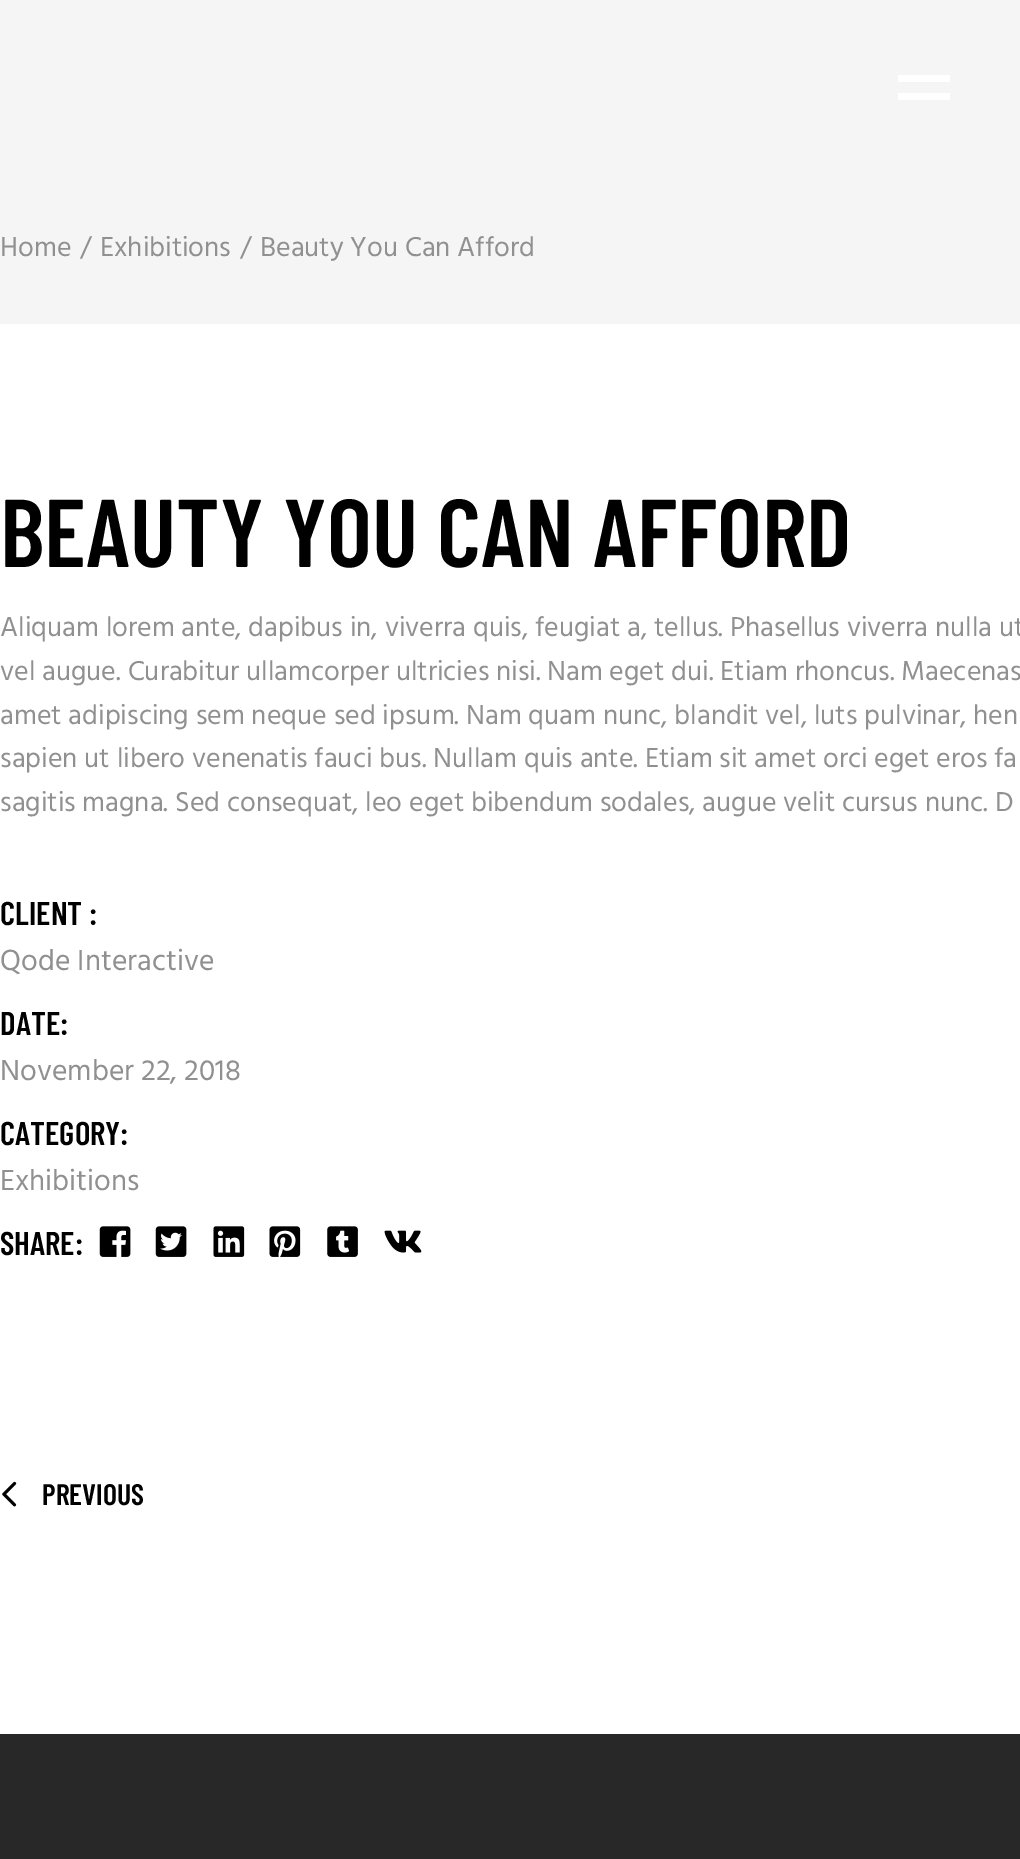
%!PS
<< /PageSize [1020 1859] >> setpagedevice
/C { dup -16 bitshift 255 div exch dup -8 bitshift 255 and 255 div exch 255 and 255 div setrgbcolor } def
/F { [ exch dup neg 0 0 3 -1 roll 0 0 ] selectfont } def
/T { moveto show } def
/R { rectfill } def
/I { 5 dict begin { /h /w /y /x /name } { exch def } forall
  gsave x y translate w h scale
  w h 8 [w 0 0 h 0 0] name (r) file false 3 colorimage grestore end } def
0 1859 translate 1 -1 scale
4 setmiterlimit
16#FFFFFF C
0 0 1020 1859 R
16#F5F5F5 C
0 0 1020 324 R
16#FFFFFF C
898 75 52 7 R
898 93 52 7 R
/Hind-Regular 28 F
16#909090 C
(Home) 0 256 T
(/) 80 256 T
(Exhibitions) 100 256 T
(/) 240 256 T
(Beauty You Can Afford) 260 256 T
/BarlowCondensed-SemiBold 96.25 F
16#000000 C
(BEAUTY YOU CAN AFFORD) 0 567 T
/Hind-Regular 28 F
16#909090 C
(Aliquam lorem ante, dapibus in, viverra quis, feugiat a, tellus. Phasellus viverra nulla ut) 0 636 T
(vel augue. Curabitur ullamcorper ultricies nisi. Nam eget dui. Etiam rhoncus. Maecenas) 0 680 T
(amet adipiscing sem neque sed ipsum. Nam quam nunc, blandit vel, luts pulvinar, hen) 0 724 T
(sapien ut libero venenatis fauci bus. Nullam quis ante. Etiam sit amet orci eget eros fa) 0 767 T
(sagitis magna. Sed consequat, leo eget bibendum sodales, augue velit cursus nunc. D) 0 811 T
/BarlowCondensed-SemiBold 33 F
16#000000 C
(CLIENT :) 0 925 T
/Hind-Regular 29.75 F
16#909090 C
(Qode Interactive) 0 970 T
/BarlowCondensed-SemiBold 33 F
16#000000 C
(DATE:) 0 1035 T
/Hind-Regular 29.75 F
16#909090 C
(November 22, 2018) 0 1080 T
/BarlowCondensed-SemiBold 33 F
16#000000 C
(CATEGORY:) 0 1145 T
/Hind-Regular 29.75 F
16#909090 C
(Exhibitions) 0 1190 T
/BarlowCondensed-SemiBold 33 F
16#000000 C
(SHARE:) 0 1255 T
(1.rgb) 99 1226 32 31 I
(2.rgb) 155 1226 32 31 I
(3.rgb) 213 1226 32 31 I
(4.rgb) 269 1226 32 31 I
(5.rgb) 327 1226 31 31 I
(6.rgb) 384 1230 38 23 I
(7.rgb) 2 1481 15 26 I
/BarlowCondensed-SemiBold 29.75 F
(PREVIOUS) 42 1505 T
16#282828 C
0 1734 1020 125 R
showpage
